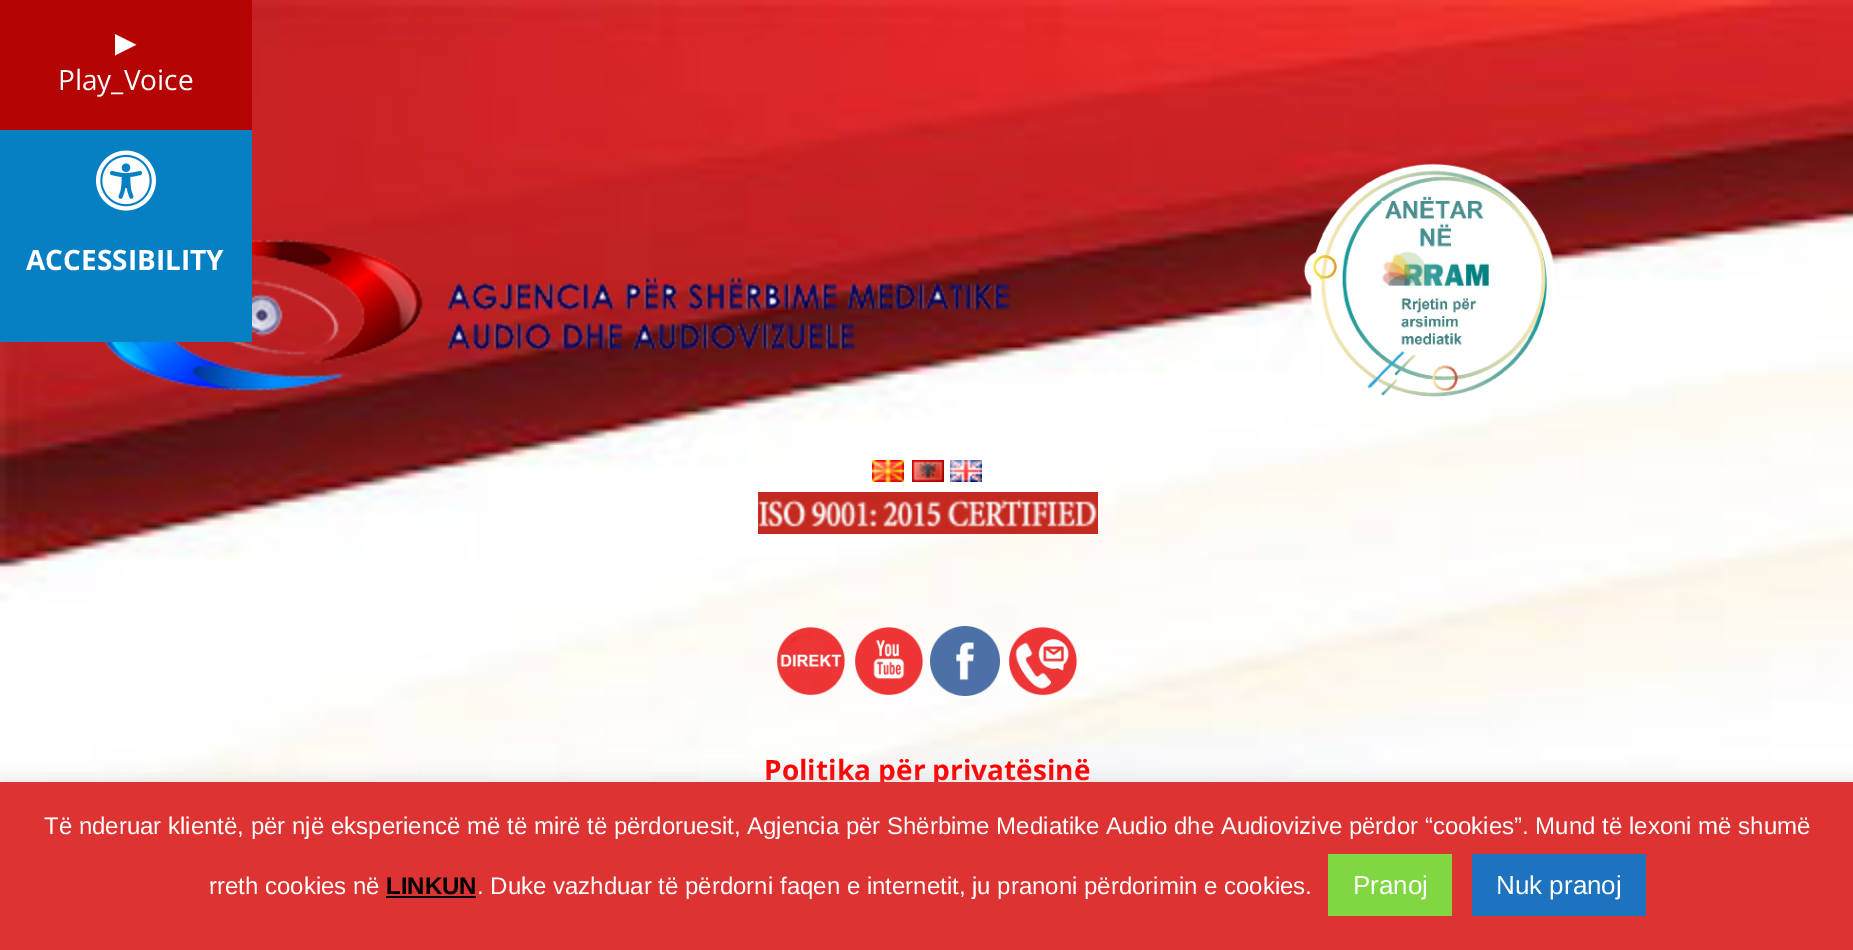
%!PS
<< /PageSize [1853 950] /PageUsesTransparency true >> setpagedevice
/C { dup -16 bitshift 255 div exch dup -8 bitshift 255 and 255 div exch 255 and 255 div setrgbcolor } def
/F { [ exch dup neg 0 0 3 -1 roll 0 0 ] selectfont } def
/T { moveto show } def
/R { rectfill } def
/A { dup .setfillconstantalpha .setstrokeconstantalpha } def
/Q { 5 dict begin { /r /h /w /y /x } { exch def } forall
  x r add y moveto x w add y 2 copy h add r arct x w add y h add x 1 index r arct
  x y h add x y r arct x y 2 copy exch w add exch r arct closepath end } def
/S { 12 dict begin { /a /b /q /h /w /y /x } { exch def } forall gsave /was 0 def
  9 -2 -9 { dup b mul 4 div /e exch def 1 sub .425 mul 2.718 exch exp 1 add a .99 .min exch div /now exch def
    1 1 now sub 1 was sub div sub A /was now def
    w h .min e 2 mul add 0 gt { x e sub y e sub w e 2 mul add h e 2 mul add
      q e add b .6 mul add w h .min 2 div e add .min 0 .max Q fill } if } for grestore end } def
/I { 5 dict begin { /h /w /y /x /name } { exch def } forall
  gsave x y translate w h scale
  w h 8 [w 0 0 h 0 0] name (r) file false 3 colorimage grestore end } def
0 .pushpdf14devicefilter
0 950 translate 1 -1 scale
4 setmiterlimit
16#FFFFFF C
0 0 1853 950 R
(2.rgb) 0 0 1853 782 I
16#B40404 C
0 0 252 130 R
/DejaVuSans-Regular 28 F
16#FFFFFF C
(▶) 115 52 T
/OpenSans-Regular 28 F
(Play_Voice) 58 90 T
(3.rgb) 103 239 908 152 I
16#0780C3 C
0 130 252 212 R
(1.rgb) 96 150 60 61 I
/OpenSans-Bold 28 F
16#FFFFFF C
(ACCESSIBILITY) 26 270 T
(4.rgb) 1303 163 252 234 I
(5.rgb) 872 460 32 22 I
(6.rgb) 912 460 32 22 I
(7.rgb) 950 460 32 22 I
(8.rgb) 758 492 340 42 I
(9.rgb) 777 627 69 69 I
(10.rgb) 855 627 69 69 I
(11.rgb) 930 626 70 70 I
(12.rgb) 1009 627 69 69 I
16#FF0000 C
(Politika për privatësinë) 764 780 T
16#ACABAB C
0 780 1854 168 0 10 .3 S
16#DD3333 C
0 782 1853 168 R
/LiberationSans-Regular 24 F
16#FFFFFF C
(Të nderuar klientë, për një eksperiencë më të mirë të përdoruesit, Agjencia për Shërbime Mediatike Audio dhe Audiovizive përdor “cookies”. Mund të lexoni më shumë) 44 834 T
(rreth cookies në) 209 894 T
/LiberationSans-Bold 24 F
16#000000 C
(LINKUN) 386 894 T
386 896 90 2 R
/LiberationSans-Regular 24 F
16#FFFFFF C
(. Duke vazhduar të përdorni faqen e internetit, ju pranoni përdorimin e cookies.) 477 894 T
16#81D742 C
1328 854 124 62 R
/LiberationSans-Regular 26 F
16#FFFFFF C
(Pranoj) 1353 894 T
16#1E73BE C
1472 854 174 62 R
16#FFFFFF C
(Nuk pranoj) 1496 894 T
.poppdf14devicefilter showpage
